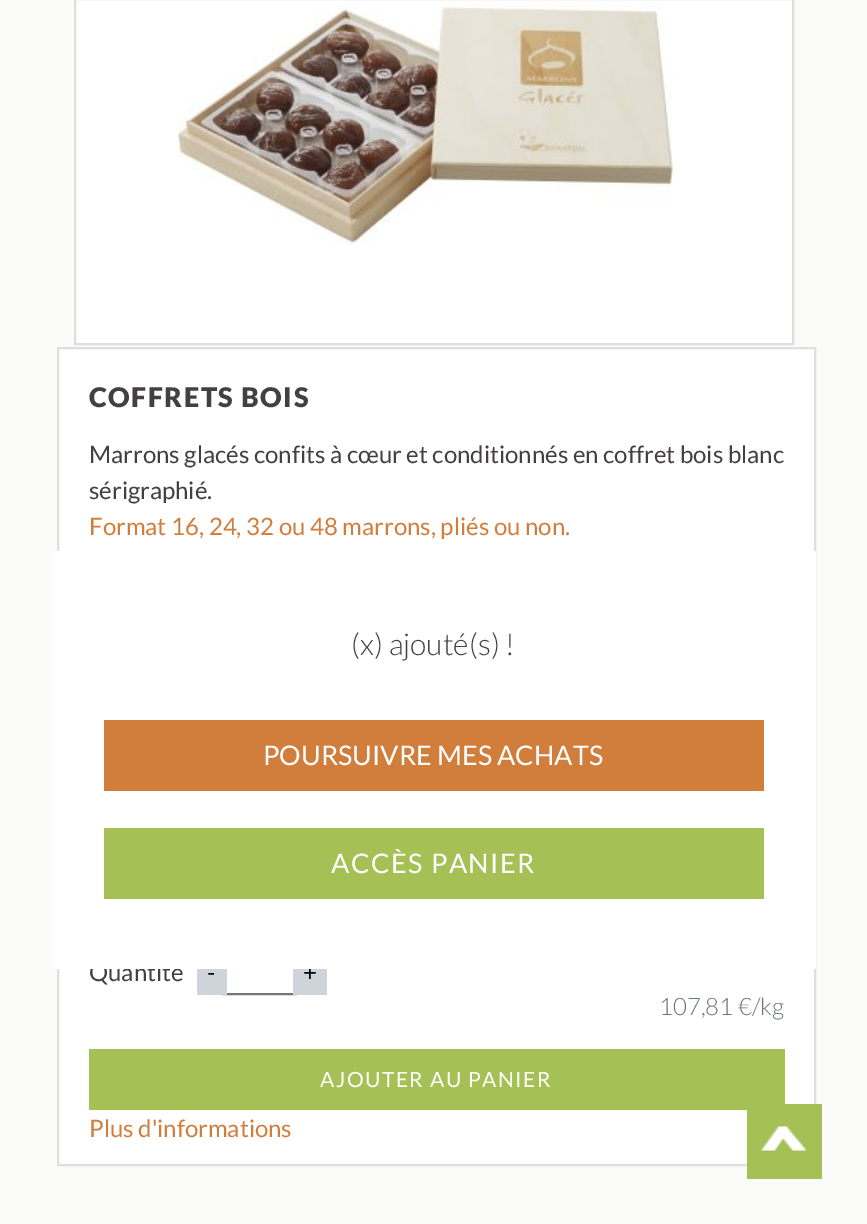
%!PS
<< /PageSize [867 1224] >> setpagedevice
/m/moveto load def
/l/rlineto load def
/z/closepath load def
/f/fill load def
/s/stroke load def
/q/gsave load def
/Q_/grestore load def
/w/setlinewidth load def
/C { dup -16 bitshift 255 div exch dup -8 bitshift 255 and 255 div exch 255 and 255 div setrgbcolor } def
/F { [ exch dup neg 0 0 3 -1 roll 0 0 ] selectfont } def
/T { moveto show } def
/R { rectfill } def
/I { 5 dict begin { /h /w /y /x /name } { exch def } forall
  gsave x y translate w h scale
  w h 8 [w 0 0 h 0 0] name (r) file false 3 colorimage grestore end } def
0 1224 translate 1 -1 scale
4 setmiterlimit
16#FBFCFA C
0 0 867 1224 R
16#FFFFFF C
75 -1 m 718 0 l 0 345 l -718 0 l z q f Q_
16#DFDFDF C
2 w
s
(1.rgb) 177 4 497 241 I
16#FFFFFF C
58 348 m 757 0 l 0 817 l -757 0 l z q f Q_
16#DFDFDF C
s
/Lato-Black 27 F
16#434041 C
89 407 m 1.5 0 (COFFRETS BOIS) ashow
/Lato-Regular 24 F
(Marrons glacés confits à cœur et conditionnés en coffret bois blanc) 89 463 T
(sérigraphié.) 89 499 T
16#D17E3D C
(Format 16, 24, 32 ou 48 marrons, pliés ou non.) 89 535 T
16#434041 C
(Quantité) 89 981 T
16#767676 C
223 951 73 43 rectstroke
16#CED4DA C
197 969 30 26 R
16#000000 C
(-) 207 981 T
16#CED4DA C
293 969 34 26 R
16#000000 C
(+) 303 981 T
/Lato-Light 24 F
16#6C757D C
(107,81 €/kg) 659 1015 T
16#A5C156 C
89 1049 696 61 R
/Lato-Regular 21 F
16#FFFFFF C
320 1087 m 1.5 0 (AJOUTER AU PANIER) ashow
/Lato-Regular 24 F
16#D17E3D C
(Plus d'informations) 89 1137 T
16#FFFFFF C
51 551 765 418 R
/Lato-Light 30 F
16#434041 C
(\(x\) ajouté\(s\) !) 351 655 T
16#D17E3D C
104 720 660 71 R
/Lato-Regular 27 F
16#FFFFFF C
(POURSUIVRE MES ACHATS) 263 765 T
16#A5C156 C
104 828 660 71 R
16#FFFFFF C
331 873 m 1.5 0 (ACCÈS PANIER) ashow
(2.rgb) 747 1104 75 75 I
showpage
